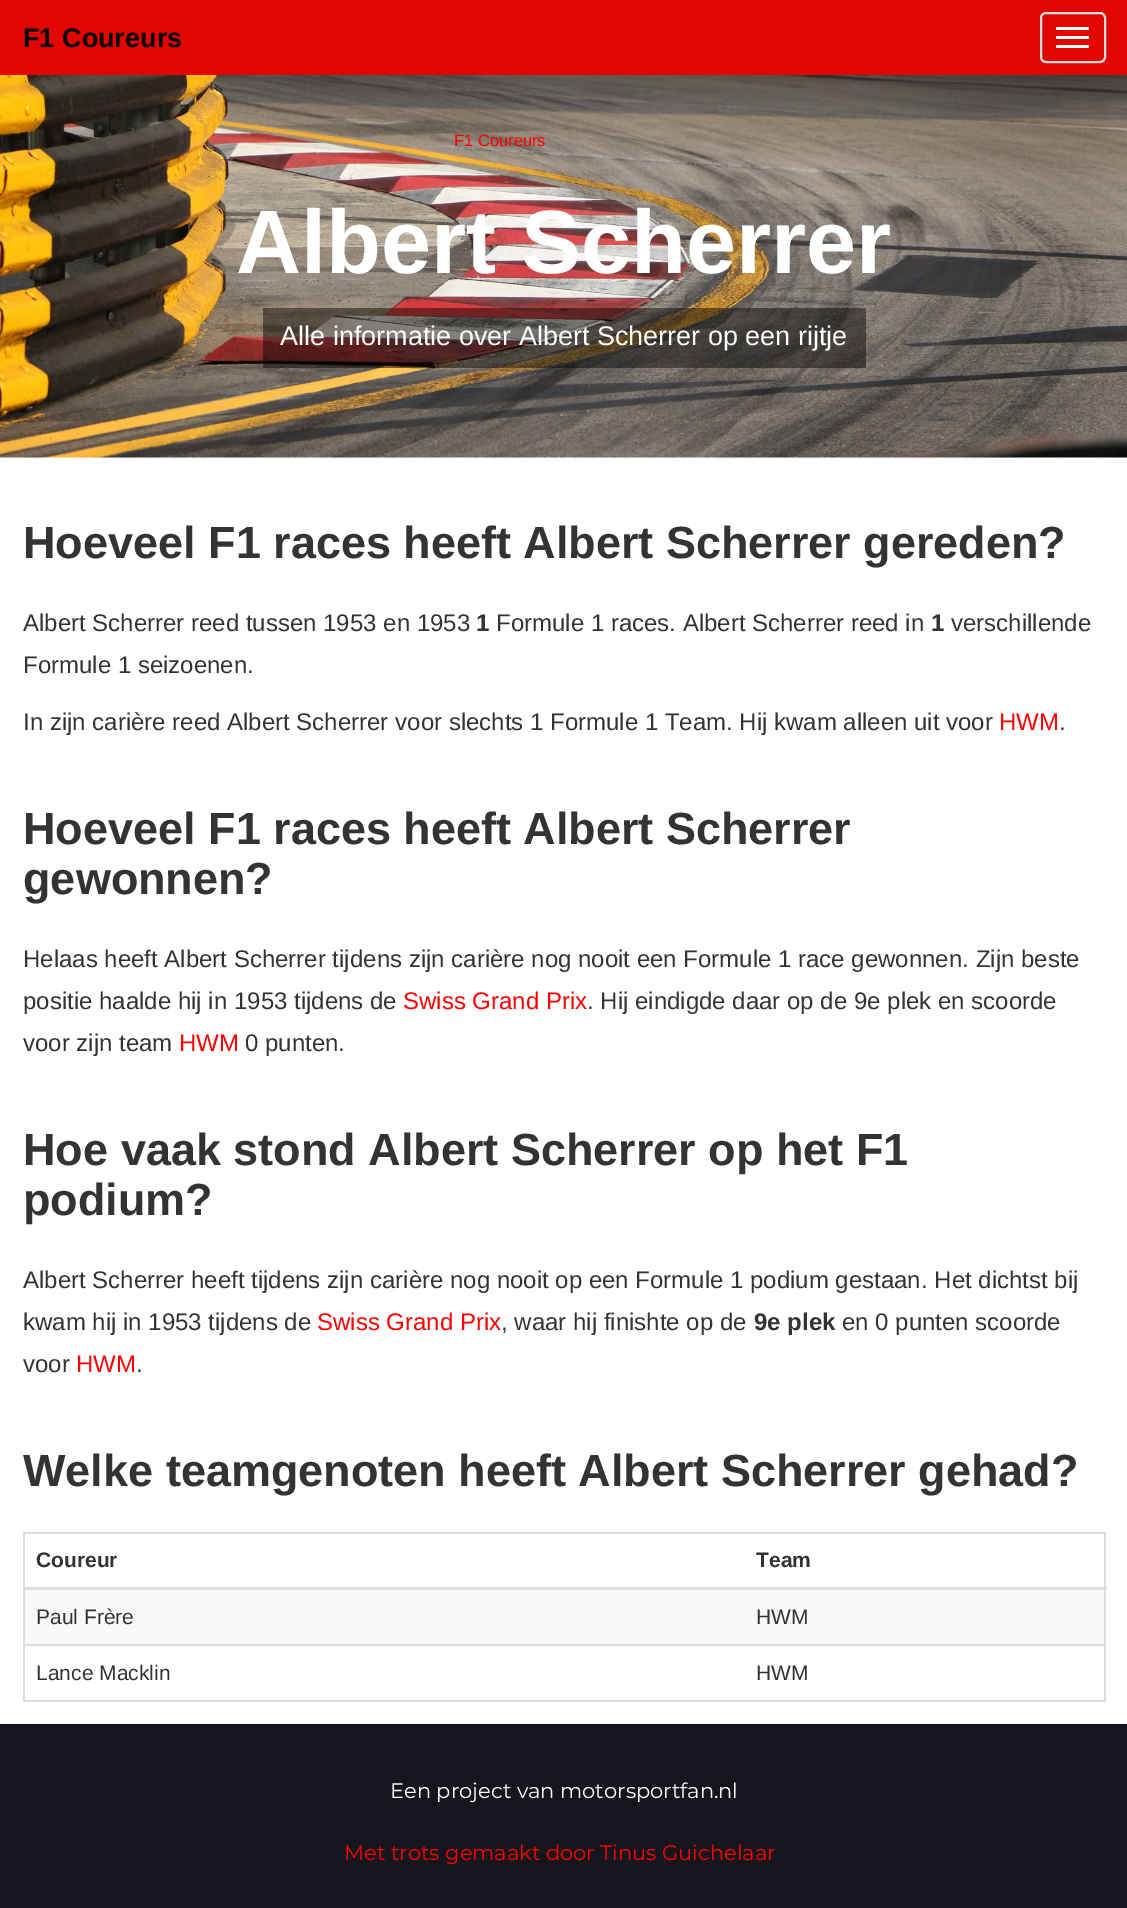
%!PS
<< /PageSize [1127 1908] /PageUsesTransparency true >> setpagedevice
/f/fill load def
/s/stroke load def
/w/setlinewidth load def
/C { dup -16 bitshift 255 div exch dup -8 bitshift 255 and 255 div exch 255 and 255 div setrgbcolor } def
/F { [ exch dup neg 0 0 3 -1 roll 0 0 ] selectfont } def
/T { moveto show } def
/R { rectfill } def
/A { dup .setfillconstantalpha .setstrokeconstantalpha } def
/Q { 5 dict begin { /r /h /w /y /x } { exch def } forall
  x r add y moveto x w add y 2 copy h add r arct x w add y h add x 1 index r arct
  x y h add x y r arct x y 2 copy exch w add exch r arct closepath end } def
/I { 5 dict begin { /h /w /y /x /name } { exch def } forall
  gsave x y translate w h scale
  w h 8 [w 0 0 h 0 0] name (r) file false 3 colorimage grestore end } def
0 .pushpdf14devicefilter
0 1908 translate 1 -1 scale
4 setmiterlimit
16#FFFFFF C
0 0 1127 1908 R
(1.rgb) 3 457 1124 1 I
16#E20500 C
0 0 1127 75 R
/LiberationSans-Bold 27 F
16#000000 C
(F1 Coureurs) 23 47 T
16#DDDDDD C
2 w
1041 13 64 49 5 Q s
16#FFFFFF C
1056 27 33 3 1.5 Q f
1056 36 33 3 1.5 Q f
1056 45 33 3 1.5 Q f
(2.rgb) 0 75 1127 383 I
/LiberationSans-Regular 16.5 F
16#FF0000 C
(F1 Coureurs) 454 146 T
/LiberationSans-Bold 90 F
16#FFFFFF C
(Albert Scherrer) 236 273 T
0.45 A
16#000000 C
263 308 603 60 R
/LiberationSans-Regular 27 F
1 A
16#FFFFFF C
(Alle informatie over Albert Scherrer op een rijtje) 280 345 T
/LiberationSans-Bold 45 F
16#333333 C
(Hoeveel F1 races heeft Albert Scherrer gereden?) 23 558 T
/LiberationSans-Regular 24 F
(Albert Scherrer reed tussen 1953 en 1953) 23 631 T
/LiberationSans-Bold 24 F
(1) 476 631 T
/LiberationSans-Regular 24 F
(Formule 1 races. Albert Scherrer reed in) 496 631 T
/LiberationSans-Bold 24 F
(1) 931 631 T
/LiberationSans-Regular 24 F
(verschillende) 951 631 T
(Formule 1 seizoenen.) 23 673 T
(In zijn carière reed Albert Scherrer voor slechts 1 Formule 1 Team. Hij kwam alleen uit voor) 23 730 T
16#FF0000 C
(HWM) 999 730 T
16#333333 C
(.) 1059 730 T
/LiberationSans-Bold 45 F
(Hoeveel F1 races heeft Albert Scherrer) 23 844 T
(gewonnen?) 23 894 T
/LiberationSans-Regular 24 F
(Helaas heeft Albert Scherrer tijdens zijn carière nog nooit een Formule 1 race gewonnen. Zijn beste) 23 967 T
(positie haalde hij in 1953 tijdens de) 23 1009 T
16#FF0000 C
(Swiss Grand Prix) 403 1009 T
16#333333 C
(. Hij eindigde daar op de 9e plek en scoorde) 587 1009 T
(voor zijn team) 23 1051 T
16#FF0000 C
(HWM) 179 1051 T
16#333333 C
(0 punten.) 245 1051 T
/LiberationSans-Bold 45 F
(Hoe vaak stond Albert Scherrer op het F1) 23 1165 T
(podium?) 23 1215 T
/LiberationSans-Regular 24 F
(Albert Scherrer heeft tijdens zijn carière nog nooit op een Formule 1 podium gestaan. Het dichtst bij) 23 1288 T
(kwam hij in 1953 tijdens de) 23 1330 T
16#FF0000 C
(Swiss Grand Prix) 317 1330 T
16#333333 C
(, waar hij finishte op de) 501 1330 T
/LiberationSans-Bold 24 F
(9e plek) 754 1330 T
/LiberationSans-Regular 24 F
(en 0 punten scoorde) 842 1330 T
(voor) 23 1372 T
16#FF0000 C
(HWM) 76 1372 T
16#333333 C
(.) 136 1372 T
/LiberationSans-Bold 45 F
(Welke teamgenoten heeft Albert Scherrer gehad?) 23 1486 T
16#DDDDDD C
23 1532 1083 2 R
1104 1532 2 169 R
23 1700 1083 2 R
23 1532 2 169 R
/LiberationSans-Bold 21 F
16#333333 C
(Coureur) 36 1567 T
16#DDDDDD C
23 1587 1084 3 R
16#333333 C
(Team) 756 1567 T
16#F9F9F9 C
25 1590 1079 54 R
/LiberationSans-Regular 21 F
16#333333 C
(Paul Frère) 36 1624 T
(HWM) 756 1624 T
(Lance Macklin) 36 1680 T
16#DDDDDD C
23 1644 1083 2 R
16#333333 C
(HWM) 756 1680 T
16#15151E C
0 1724 1127 184 R
/Montserrat-Regular 21 F
16#FFFFFF C
(Een project van motorsportfan.nl) 390 1798 T
16#FF0000 C
(Met trots gemaakt door Tinus Guichelaar) 344 1860 T
.poppdf14devicefilter showpage
